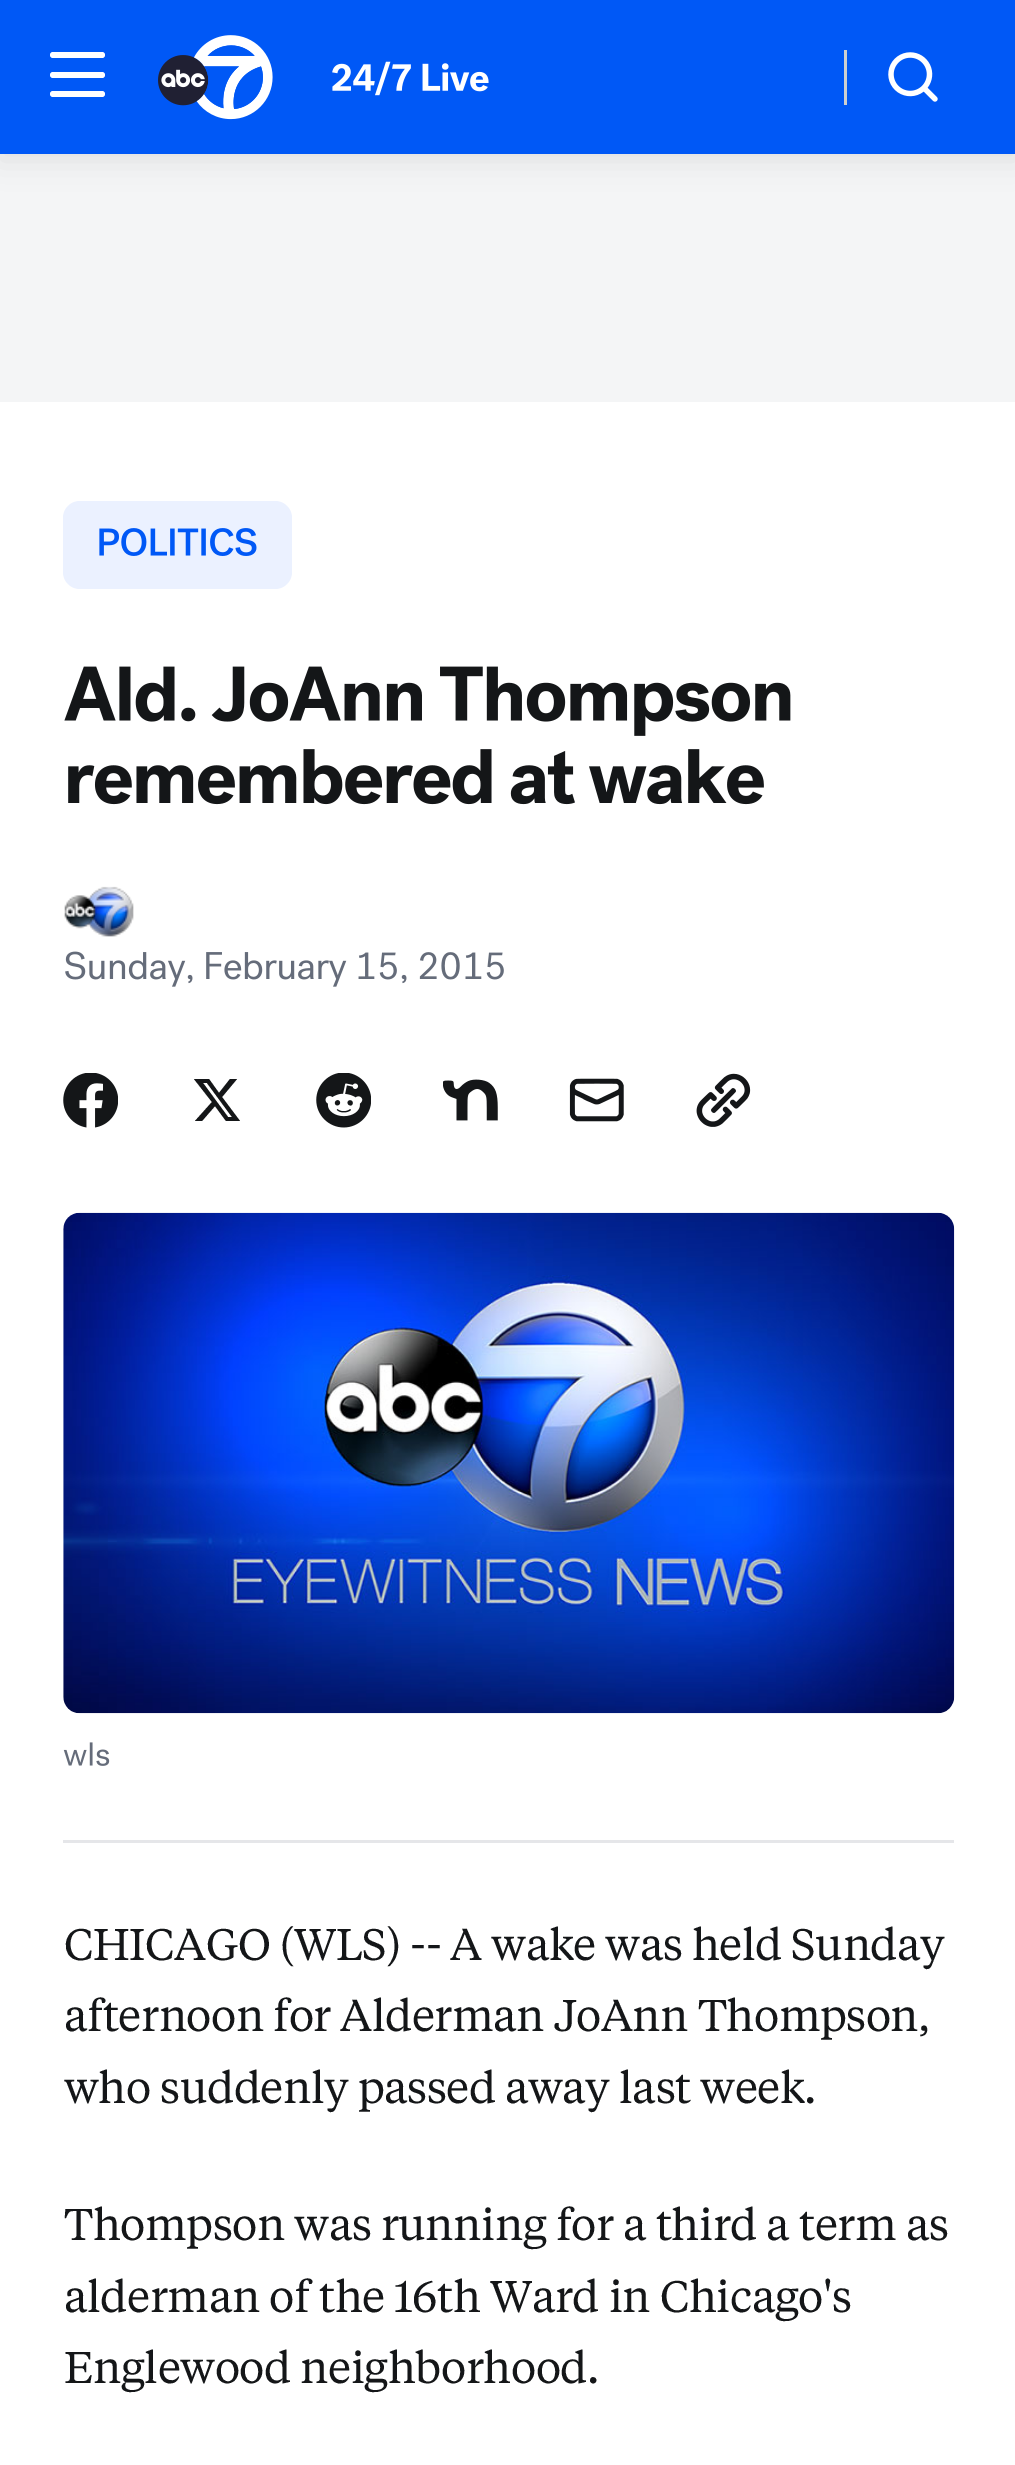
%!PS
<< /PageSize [1015 2465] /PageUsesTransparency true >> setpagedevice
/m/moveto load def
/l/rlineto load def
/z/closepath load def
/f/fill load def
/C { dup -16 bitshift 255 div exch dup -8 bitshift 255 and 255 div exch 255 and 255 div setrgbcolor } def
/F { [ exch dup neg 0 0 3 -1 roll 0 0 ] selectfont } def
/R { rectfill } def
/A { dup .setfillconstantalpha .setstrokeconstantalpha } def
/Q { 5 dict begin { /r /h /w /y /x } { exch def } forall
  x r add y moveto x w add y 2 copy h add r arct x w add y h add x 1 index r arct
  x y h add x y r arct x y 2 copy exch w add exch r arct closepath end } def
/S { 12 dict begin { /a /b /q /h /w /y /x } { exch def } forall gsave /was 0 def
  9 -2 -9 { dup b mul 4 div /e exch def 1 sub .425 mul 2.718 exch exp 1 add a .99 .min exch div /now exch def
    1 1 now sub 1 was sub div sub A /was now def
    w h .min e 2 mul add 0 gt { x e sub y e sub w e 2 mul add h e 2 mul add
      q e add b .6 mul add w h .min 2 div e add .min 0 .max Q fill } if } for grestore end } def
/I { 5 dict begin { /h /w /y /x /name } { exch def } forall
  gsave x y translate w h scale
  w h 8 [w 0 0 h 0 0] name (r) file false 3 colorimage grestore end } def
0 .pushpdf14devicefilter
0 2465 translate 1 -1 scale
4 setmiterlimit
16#FFFFFF C
0 0 1015 2465 R
16#F4F5F6 C
0 154 1015 248 R
16#000000 C
0 6 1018 154 0 14 .08 S
16#0058F6 C
0 0 1015 154 R
16#FFFFFF C
50 72 55 6 3 Q f
50 52 55 6 3 Q f
50 91 55 6 3 Q f
(1.rgb) 158 35 115 85 I
(2.rgb) 332 61 157 35 I
16#CECFCF C
844 50 3 55 R
(3.rgb) 888 52 50 50 I
16#EBF1FF C
63 501 229 88 17 Q f
(4.rgb) 99 528 158 28 I
(5.rgb) 64 666 727 70 I
(6.rgb) 68 749 696 56 I
(7.rgb) 64 886 70 51 I
(8.rgb) 65 951 439 36 I
(9.rgb) 63 1073 55 55 I
16#141618 C
230 1079 m 7 0 l -15 18 l 18 24 l -14 0 l -11 -15 l -13 15 l -7 0 l 17 -19 l -18 -23 l 15 0 l 10 14 l z 228 1117 m 4 0 l -25 -34 l -4 0 l z f
(10.rgb) 316 1073 55 55 I
(11.rgb) 443 1079 55 42 I
(12.rgb) 569 1078 55 44 I
(13.rgb) 696 1073 55 54 I
(14.rgb) 63 1212 892 502 I
(15.rgb) 63 1742 47 24 I
16#E5E6E9 C
63 1840 891 3 R
/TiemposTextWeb-Regular 44 F
16#141618 C
64 1960 m -.45 0 (CHICAGO \(WLS\) -- A wake was held Sunday) ashow
64 2031 m -.45 0 (afternoon for Alderman JoAnn Thompson,) ashow
64 2103 m -.45 0 (who suddenly passed away last week.) ashow
64 2240 m -.45 0 (Thompson was running for a third a term as) ashow
64 2312 m -.45 0 (alderman of the 16th Ward in Chicago's) ashow
64 2383 m -.45 0 (Englewood neighborhood.) ashow
.poppdf14devicefilter showpage
